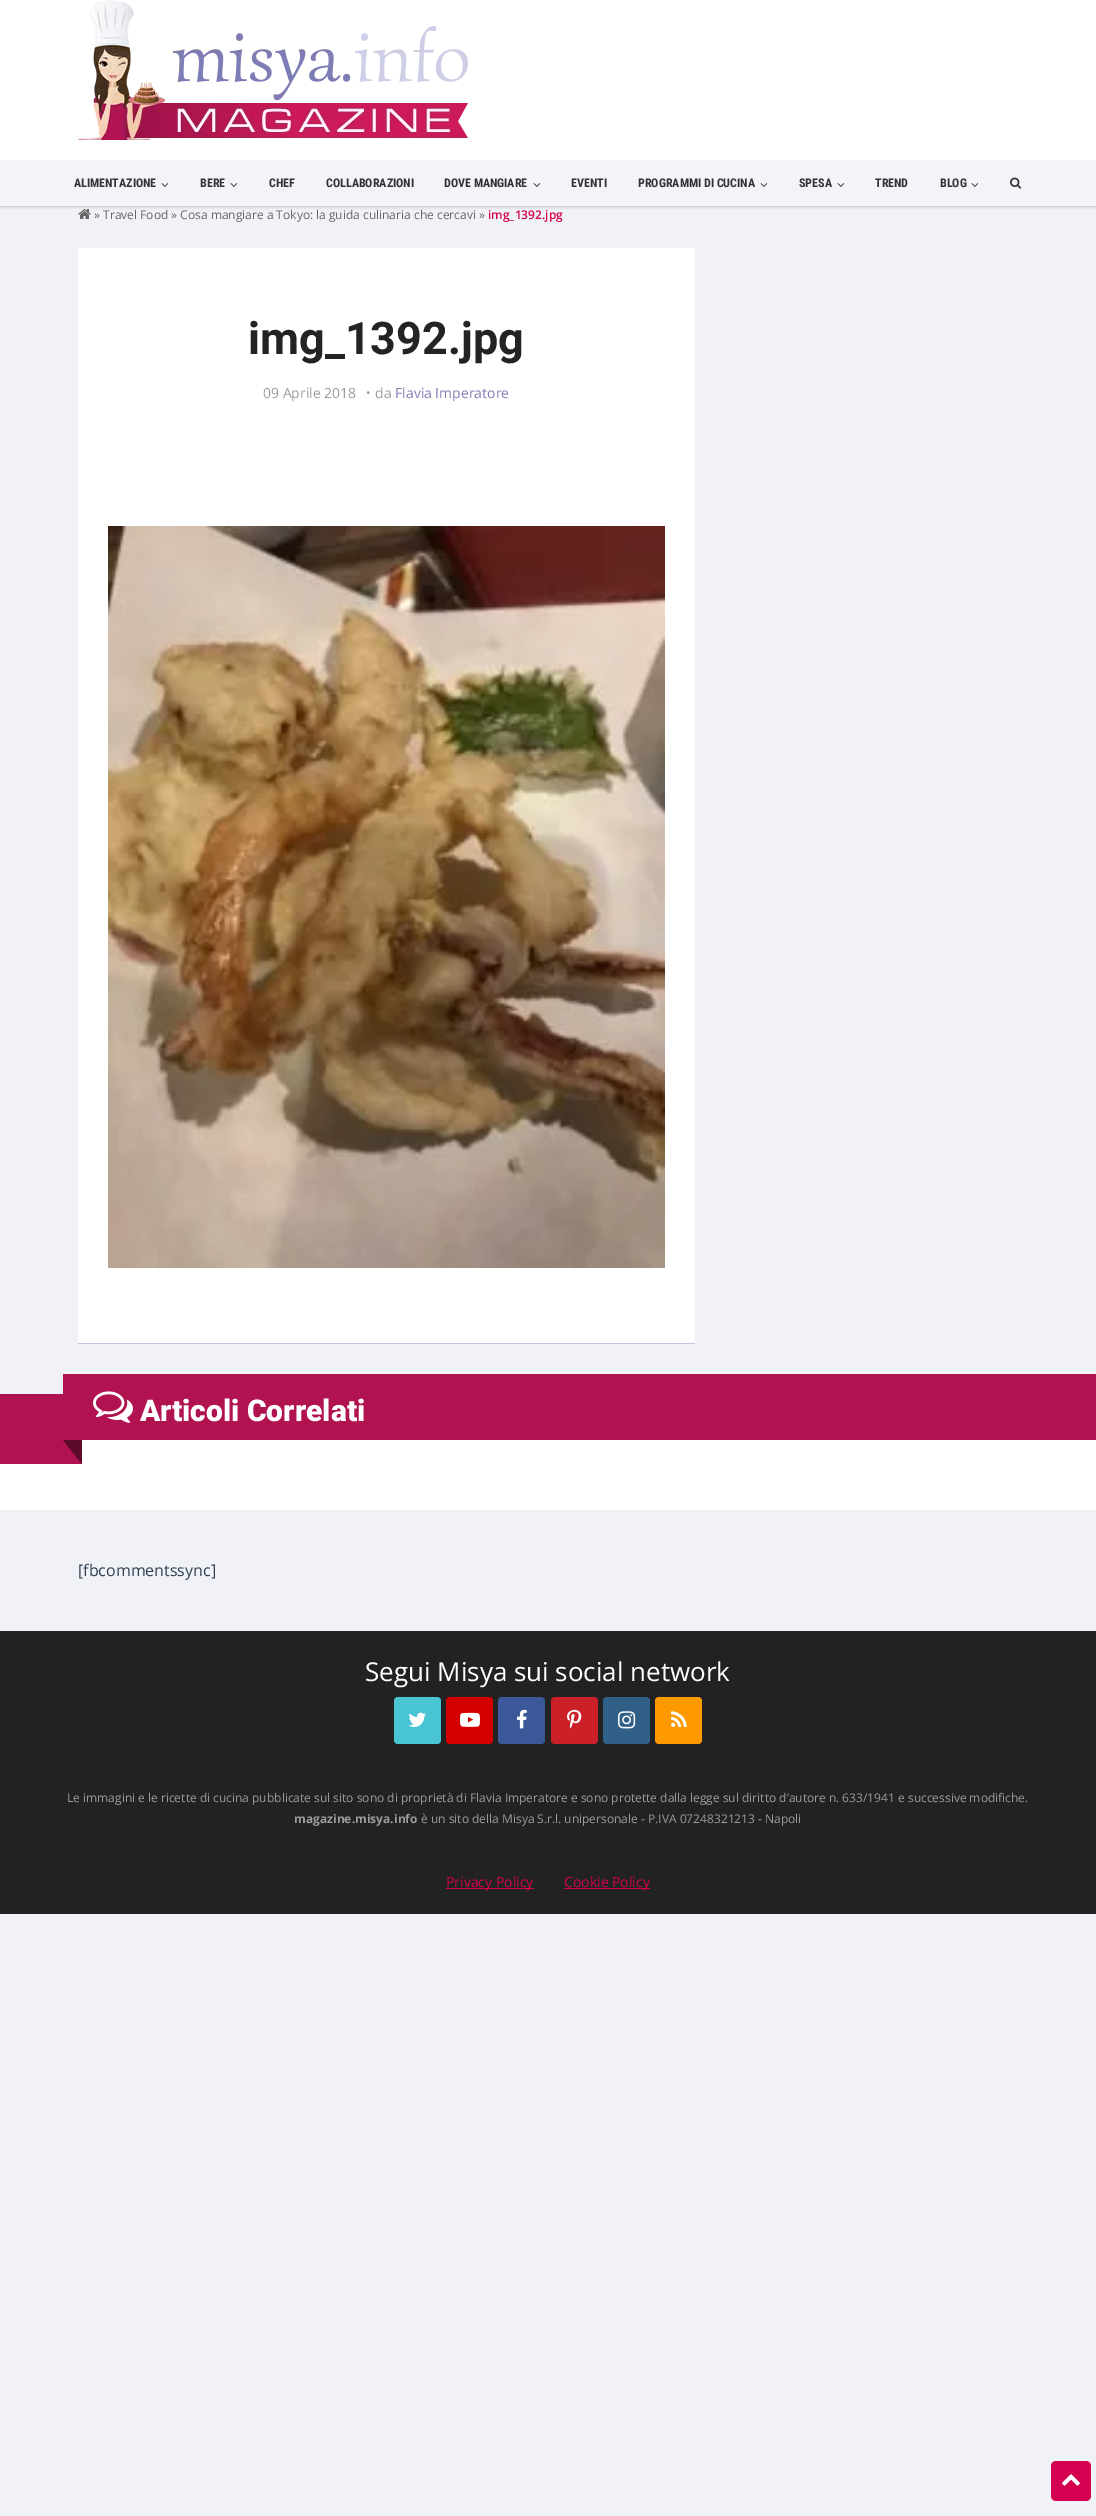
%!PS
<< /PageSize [1096 2516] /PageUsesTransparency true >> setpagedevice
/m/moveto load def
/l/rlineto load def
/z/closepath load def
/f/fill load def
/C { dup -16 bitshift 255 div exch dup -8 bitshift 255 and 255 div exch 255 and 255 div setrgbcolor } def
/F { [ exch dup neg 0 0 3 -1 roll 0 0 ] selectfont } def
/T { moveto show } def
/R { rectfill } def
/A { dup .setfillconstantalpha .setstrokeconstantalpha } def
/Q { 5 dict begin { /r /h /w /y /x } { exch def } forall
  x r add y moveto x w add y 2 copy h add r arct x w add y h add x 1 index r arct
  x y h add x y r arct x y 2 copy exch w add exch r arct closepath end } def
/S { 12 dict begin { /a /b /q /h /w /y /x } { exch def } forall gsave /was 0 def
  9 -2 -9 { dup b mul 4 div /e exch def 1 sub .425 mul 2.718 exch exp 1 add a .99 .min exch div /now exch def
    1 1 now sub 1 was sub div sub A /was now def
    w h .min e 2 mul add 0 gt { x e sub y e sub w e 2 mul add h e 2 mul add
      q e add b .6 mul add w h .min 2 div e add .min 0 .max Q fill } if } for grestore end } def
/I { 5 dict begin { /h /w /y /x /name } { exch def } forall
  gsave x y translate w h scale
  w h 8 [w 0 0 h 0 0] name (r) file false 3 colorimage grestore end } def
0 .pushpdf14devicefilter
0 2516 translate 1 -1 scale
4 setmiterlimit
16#F1F2F7 C
0 0 1096 2516 R
(4.rgb) 78 209 13 10 I
16#000000 C
0 1 1096 206 0 1.5 .2 S
16#FFFFFF C
0 0 1096 160 R
(1.rgb) 78 0 390 140 I
16#F6F2F9 C
0 160 1096 46 R
/RobotoCondensed-Bold 12 F
16#333333 C
(ALIMENTAZIONE) 74 187 T
(2.rgb) 161 183 8 4 I
(BERE) 200 187 T
(2.rgb) 230 183 8 4 I
(CHEF) 269 187 T
(COLLABORAZIONI) 326 187 T
(DOVE MANGIARE) 444 187 T
(2.rgb) 533 183 8 4 I
(EVENTI) 571 187 T
(PROGRAMMI DI CUCINA) 638 187 T
(2.rgb) 760 183 8 4 I
(SPESA) 799 187 T
(2.rgb) 837 183 8 4 I
(TREND) 875 187 T
(BLOG) 940 187 T
(2.rgb) 971 183 8 4 I
(3.rgb) 1010 177 12 12 I
/OpenSans-Regular 12 F
16#666666 C
(» Travel Food » Cosa mangiare a Tokyo: la guida culinaria che cercavi ») 94 219 T
/OpenSans-SemiBold 12 F
16#D40050 C
(img_1392.jpg) 488 219 T
16#FFFFFF C
78 248 617 1095 R
/Roboto-Bold 45 F
16#232323 C
(img_1392.jpg) 248 354 T
/OpenSans-Regular 14 F
16#9B9B9B C
(09 Aprile 2018) 263 398 T
/OpenSans-Regular 12 F
(•) 366 397 T
/OpenSans-Regular 14 F
(da) 375 398 T
16#7E7DB5 C
(Flavia Imperatore) 395 398 T
(5.rgb) 108 526 557 742 I
16#C5C5DB C
78 1343 617 1 R
16#FFFFFF C
0 1440 1096 70 R
16#B11351 C
63 1374 1033 66 R
0 1394 63 70 R
(6.rgb) 93 1391 40 32 I
/Roboto-Black 30 F
16#FFFFFF C
(Articoli Correlati) 140 1421 T
16#B11351 C
63 1440 19 24 R
16#5D0A2B C
82 1440 m 0 24 l -19 -24 l z f
/OpenSans-Regular 16 F
16#2C3E50 C
([fbcommentssync]) 78 1576 T
16#222222 C
0 1631 1096 283 R
/OpenSans-Regular 26 F
16#FFFFFF C
(Segui Misya sui social network) 365 1681 T
16#48C4D2 C
394 1697 47 47 4 Q f
(7.rgb) 408 1712 18 15 I
16#D40000 C
446 1697 47 47 4 Q f
(8.rgb) 460 1712 20 15 I
16#3B5998 C
498 1697 47 47 4 Q f
(9.rgb) 517 1709 10 20 I
16#CB2027 C
551 1697 47 47 4 Q f
(10.rgb) 567 1709 15 20 I
16#306088 C
603 1697 47 47 4 Q f
(11.rgb) 618 1711 18 18 I
16#FE9900 C
655 1697 47 47 4 Q f
(12.rgb) 671 1711 16 16 I
/OpenSans-Regular 12 F
16#9B9B9B C
(Le immagini e le ricette di cucina pubblicate sul sito sono di proprietà di Flavia Imperatore e sono protette dalla legge sul diritto d’autore n. 633/1941 e successive modifiche.) 67 1802 T
/OpenSans-Bold 12 F
(magazine.misya.info) 294 1823 T
/OpenSans-Regular 12 F
(è un sito della Misya S.r.l. unipersonale - P.IVA 07248321213 - Napoli) 421 1823 T
16#D40050 C
446 1888 88 1 R
/OpenSans-Regular 14 F
(Privacy Policy) 446 1887 T
564 1888 86 1 R
(Cookie Policy) 564 1887 T
1051 2461 40 40 5 Q f
(13.rgb) 1062 2474 18 12 I
.poppdf14devicefilter showpage
